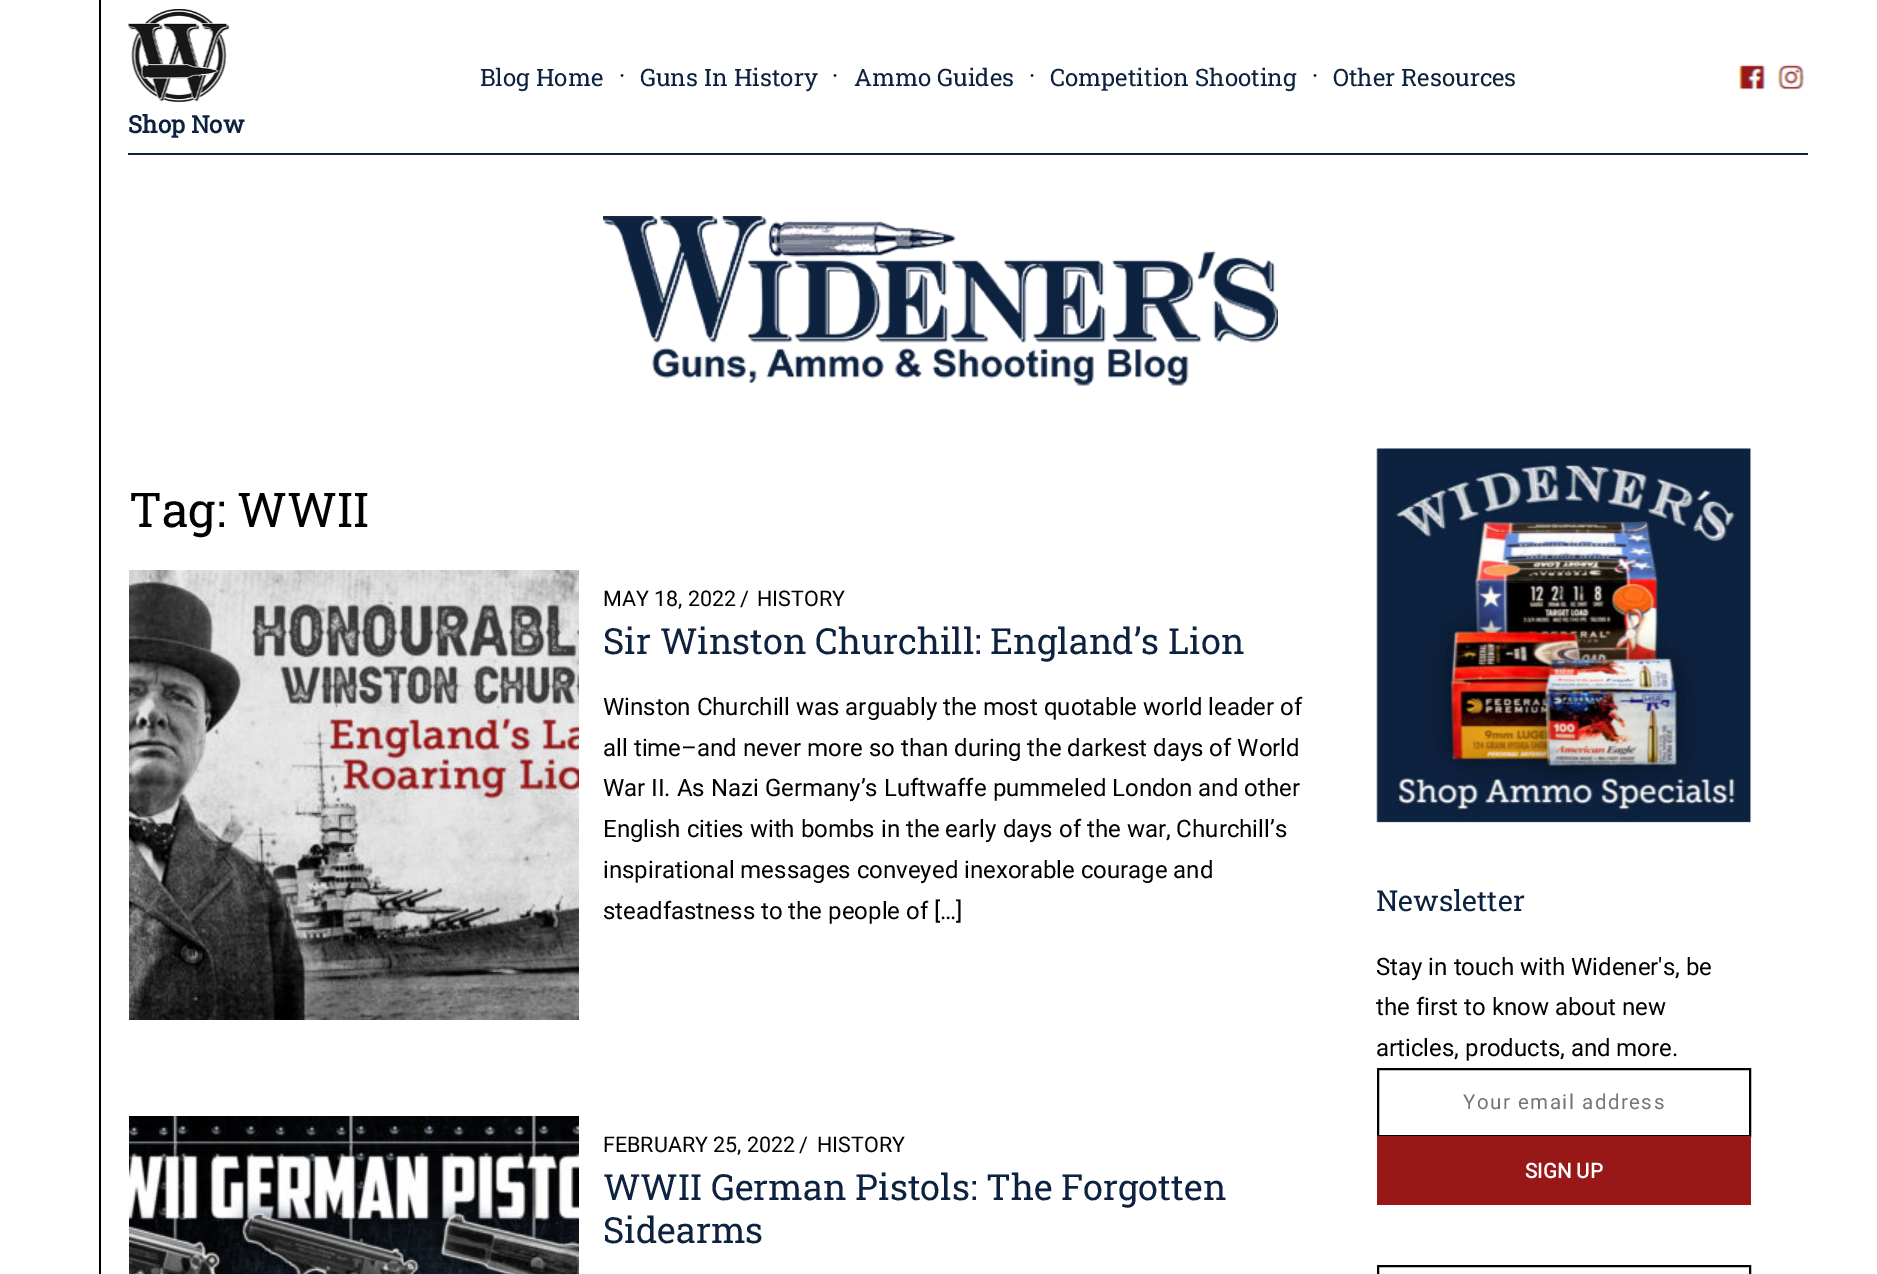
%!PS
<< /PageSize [1877 1274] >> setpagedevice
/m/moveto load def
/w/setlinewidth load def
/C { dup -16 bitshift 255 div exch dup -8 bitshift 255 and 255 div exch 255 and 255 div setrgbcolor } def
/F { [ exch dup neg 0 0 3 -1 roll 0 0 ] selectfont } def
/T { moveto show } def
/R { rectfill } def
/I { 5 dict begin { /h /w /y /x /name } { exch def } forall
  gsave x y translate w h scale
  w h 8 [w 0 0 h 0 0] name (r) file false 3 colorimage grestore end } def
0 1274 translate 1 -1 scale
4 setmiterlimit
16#FFFFFF C
0 0 1877 1274 R
16#000000 C
99 0 2 1274 R
16#0D223F C
128 153 1680 2 R
/RobotoSlab-Regular 24 F
(Blog Home) 480 86 T
/Roboto-Regular 24 F
16#000000 C
(·) 619 84 T
/RobotoSlab-Regular 24 F
16#0D223F C
(Guns In History) 640 86 T
/Roboto-Regular 24 F
16#000000 C
(·) 832 84 T
/RobotoSlab-Regular 24 F
16#0D223F C
(Ammo Guides) 854 86 T
/Roboto-Regular 24 F
16#000000 C
(·) 1029 84 T
/RobotoSlab-Regular 24 F
16#0D223F C
(Competition Shooting) 1050 86 T
/Roboto-Regular 24 F
16#000000 C
(·) 1312 84 T
/RobotoSlab-Regular 24 F
16#0D223F C
(Other Resources) 1333 86 T
(1.rgb) 1739 64 27 26 I
(2.rgb) 1778 64 27 26 I
(3.rgb) 128 9 102 93 I
/RobotoSlab-Bold 24 F
(Shop Now) 128 133 T
(4.rgb) 603 216 675 170 I
/RobotoSlab-Regular 48 F
16#000000 C
(Tag: WWII) 129 527 T
(5.rgb) 129 570 450 450 I
/Roboto-Regular 21.5 F
(MAY 18, 2022) 603 606 T
(/) 740 606 T
(HISTORY) 757 606 T
/RobotoSlab-Regular 36 F
16#0D223F C
(Sir Winston Churchill: England’s Lion) 603 654 T
/Roboto-Regular 24 F
16#000000 C
(Winston Churchill was arguably the most quotable world leader of) 603 715 T
(all time–and never more so than during the darkest days of World) 603 756 T
(War II. As Nazi Germany’s Luftwaffe pummeled London and other) 603 796 T
(English cities with bombs in the early days of the war, Churchill’s) 603 837 T
(inspirational messages conveyed inexorable courage and) 603 878 T
(steadfastness to the people of […]) 603 919 T
(6.rgb) 129 1116 450 158 I
/Roboto-Regular 21.5 F
(FEBRUARY 25, 2022) 603 1152 T
(/) 799 1152 T
(HISTORY) 817 1152 T
/RobotoSlab-Regular 36 F
16#0D223F C
(WWII German Pistols: The Forgotten) 603 1200 T
(Sidearms) 603 1243 T
(7.rgb) 1376 448 375 375 I
/RobotoSlab-Regular 28.75 F
(Newsletter) 1376 911 T
/Roboto-Regular 24 F
16#000000 C
(Stay in touch with Widener's, be) 1376 975 T
(the first to know about new) 1376 1015 T
(articles, products, and more.) 1376 1056 T
2 w
1378 1069 372 67 rectstroke
/Roboto-Regular 20.5 F
16#757575 C
1463 1109 m 1.5 0 (Your email address) ashow
16#981818 C
1377 1136 374 69 R
/Roboto-Bold 20.5 F
16#FEFEFE C
(SIGN UP) 1525 1178 T
16#000000 C
1378 1266 372 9 rectstroke
showpage
